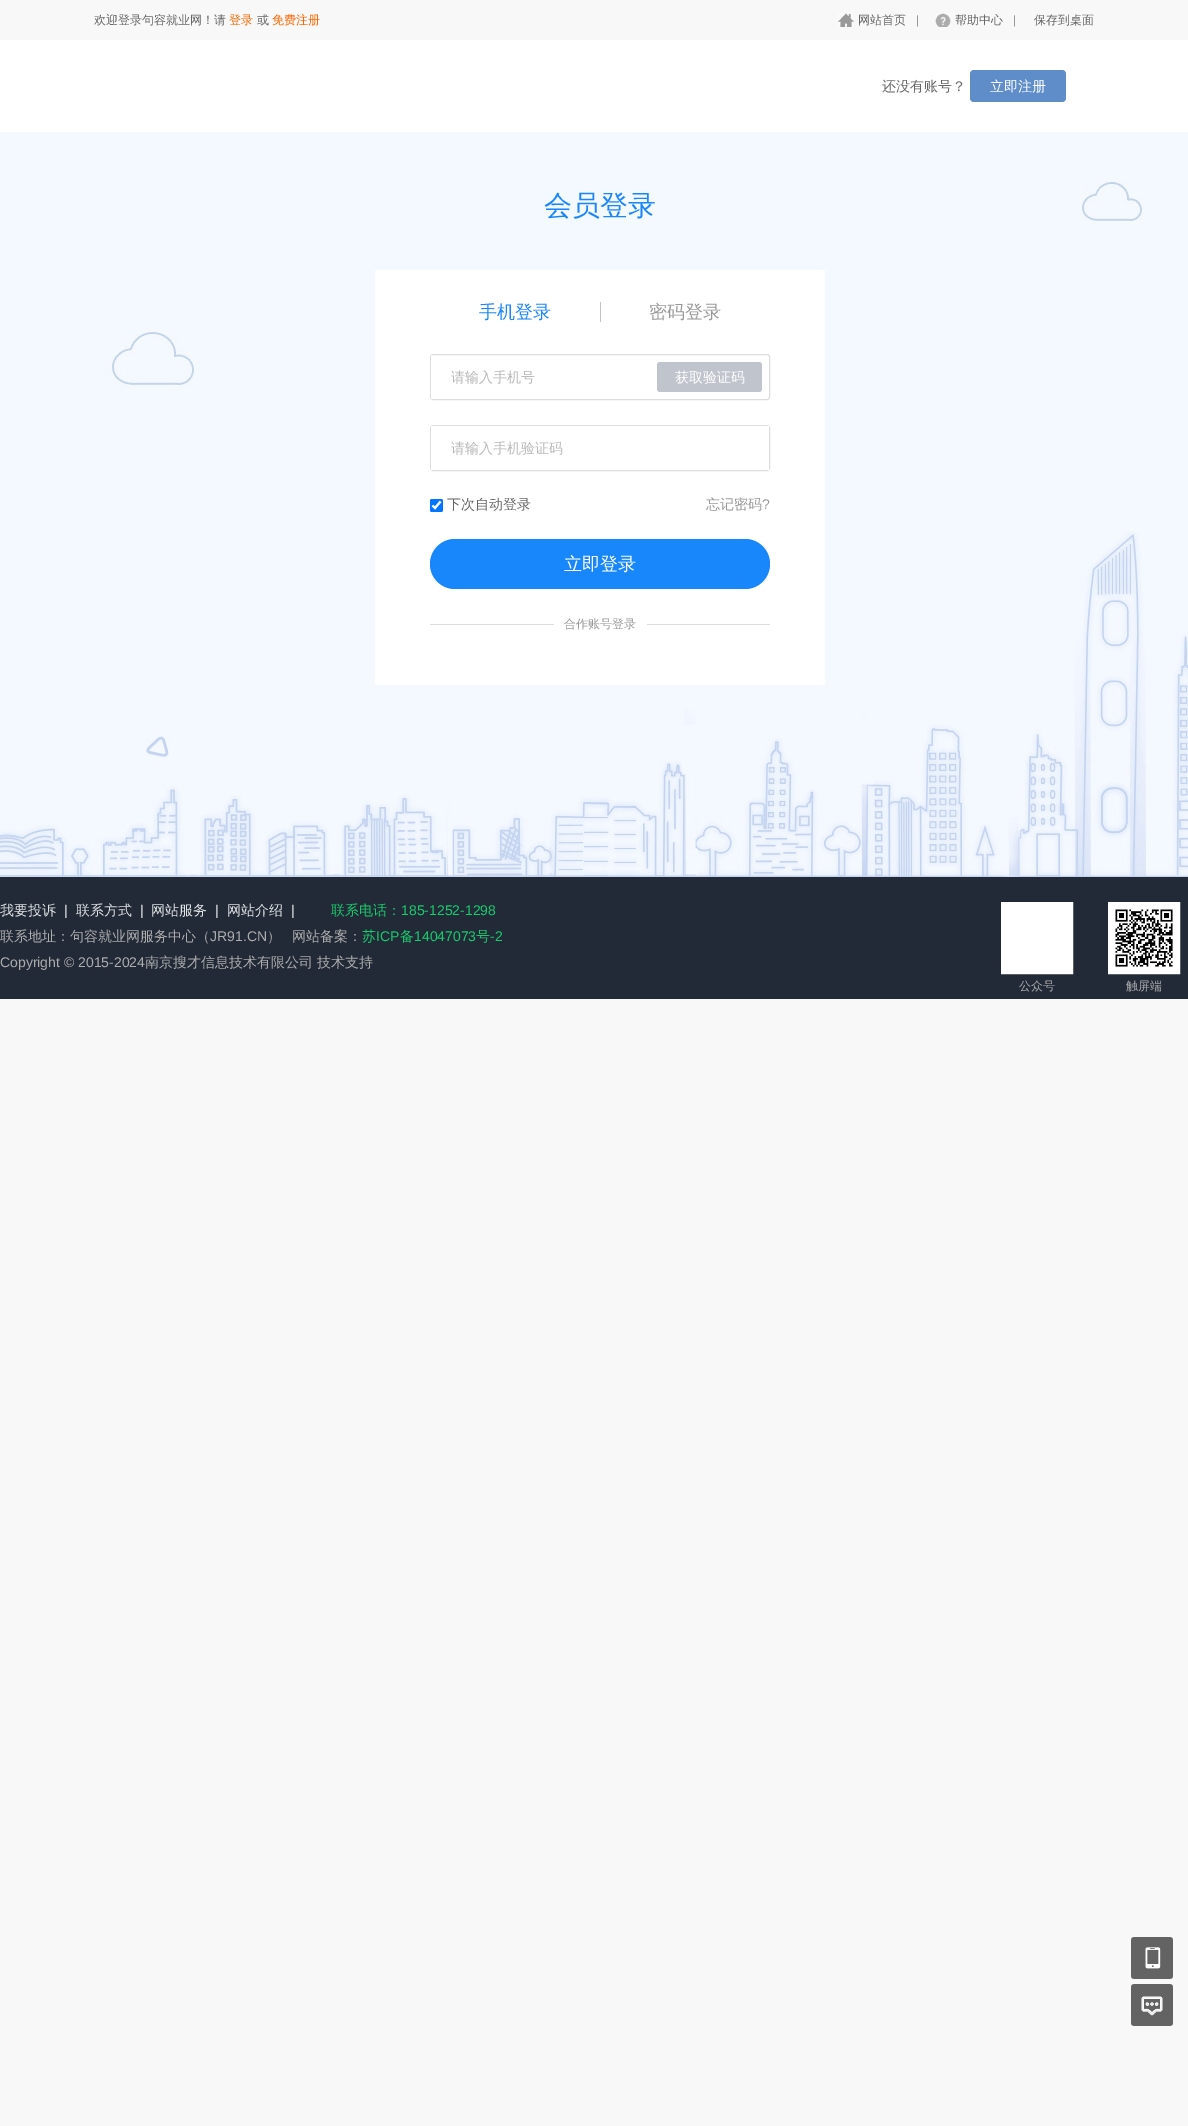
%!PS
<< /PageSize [1188 2126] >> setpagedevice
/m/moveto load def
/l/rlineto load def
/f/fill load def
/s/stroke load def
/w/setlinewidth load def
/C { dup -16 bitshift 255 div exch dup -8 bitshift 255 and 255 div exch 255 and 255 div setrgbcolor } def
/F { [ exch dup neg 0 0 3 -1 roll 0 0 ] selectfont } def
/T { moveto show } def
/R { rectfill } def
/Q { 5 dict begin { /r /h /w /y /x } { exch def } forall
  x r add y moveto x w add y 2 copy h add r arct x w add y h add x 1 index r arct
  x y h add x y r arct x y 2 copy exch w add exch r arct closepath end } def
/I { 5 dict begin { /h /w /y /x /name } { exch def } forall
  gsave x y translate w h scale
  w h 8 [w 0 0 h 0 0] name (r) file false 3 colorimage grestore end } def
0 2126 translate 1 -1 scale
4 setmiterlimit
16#F8F8F8 C
0 0 1188 2126 R
/WenQuanYiZenHei-Medium 12 F
16#666666 C
(欢迎登录句容就业网！请) 94 24 T
16#FF6600 C
(登录) 229 24 T
16#666666 C
(或) 257 24 T
16#FF6600 C
(免费注册) 272 24 T
(1.rgb) 838 13 16 14 I
16#666666 C
(网站首页) 858 24 T
/LiberationSans-Regular 12 F
16#999999 C
(|) 916 24 T
(2.rgb) 935 13 16 14 I
/WenQuanYiZenHei-Medium 12 F
16#666666 C
(帮助中心) 955 24 T
/LiberationSans-Regular 12 F
16#999999 C
(|) 1013 24 T
/WenQuanYiZenHei-Medium 12 F
16#666666 C
(保存到桌面) 1034 24 T
16#FFFFFF C
0 40 1188 92 R
/WenQuanYiZenHei-Medium 14 F
16#666666 C
(还没有账号？) 882 91 T
16#5F8DC9 C
970 70 96 32 4 Q f
16#FFFFFF C
(立即注册) 990 91 T
(3.rgb) 0 132 1188 745 I
/WenQuanYiZenHei-Medium 28 F
16#1787FB C
(会员登录) 544 215 T
16#FFFFFF C
375 270 450 415 R
/WenQuanYiZenHei-Medium 18 F
16#1787FB C
(手机登录) 479 318 T
16#C0C4CC C
600 302 1 20 R
16#999999 C
(密码登录) 649 318 T
16#DDDDDD C
430.5 354.5 339 45 2.5 Q s
16#FFFFFF C
431 355 2 44 R
/WenQuanYiZenHei-Medium 14 F
16#B9B9B9 C
(请输入手机号) 451 382 T
16#C0C4CC C
657 362 105 30 3 Q f
16#FFFFFF C
(获取验证码) 675 382 T
16#DDDDDD C
430.5 425.5 339 45 2.5 Q s
16#FFFFFF C
431 426 338 44 R
16#B9B9B9 C
(请输入手机验证码) 451 453 T
16#0075FF C
430 499 13 13 2 Q f
16#FFFFFF C
2.1 w
432.5 505.5 m 2.5 2.5 l 5.5 -6.5 l s
16#666666 C
(下次自动登录) 447 509 T
16#999999 C
(忘记密码) 706 509 T
/LiberationSans-Regular 14 F
(?) 762 509 T
16#1787FB C
430 539 340 50 25 Q f
/WenQuanYiZenHei-Medium 18 F
16#FFFFFF C
(立即登录) 564 570 T
16#DDDDDD C
430 624 340 1 R
16#FFFFFF C
554 624 93 1 R
/WenQuanYiZenHei-Medium 12 F
16#999999 C
(合作账号登录) 564 628 T
16#222A37 C
0 877 1188 122 R
/WenQuanYiZenHei-Medium 14 F
16#E1E4E6 C
(我要投诉) 0 915 T
/LiberationSans-Regular 14 F
(|) 64 915 T
/WenQuanYiZenHei-Medium 14 F
(联系方式) 76 915 T
/LiberationSans-Regular 14 F
(|) 140 915 T
/WenQuanYiZenHei-Medium 14 F
(网站服务) 151 915 T
/LiberationSans-Regular 14 F
(|) 215 915 T
/WenQuanYiZenHei-Medium 14 F
(网站介绍) 227 915 T
/LiberationSans-Regular 14 F
(|) 291 915 T
/WenQuanYiZenHei-Medium 14 F
16#1ACB6D C
(联系电话：) 331 915 T
/LiberationSans-Regular 14 F
(185-1252-1298) 401 915 T
/WenQuanYiZenHei-Medium 14 F
16#ADADAD C
(联系地址：句容就业网服务中心（) 0 941 T
/LiberationSans-Regular 14 F
(JR91.CN) 210 941 T
/WenQuanYiZenHei-Medium 14 F
(）) 267 941 T
(网站备案：) 292 941 T
16#1ACB6D C
(苏) 362 941 T
/LiberationSans-Regular 14 F
(ICP) 376 941 T
/WenQuanYiZenHei-Medium 14 F
(备) 400 941 T
/LiberationSans-Regular 14 F
(14047073) 414 941 T
/WenQuanYiZenHei-Medium 14 F
(号) 476 941 T
/LiberationSans-Regular 14 F
(-2) 490 941 T
16#ADADAD C
(Copyright © 2015-2024) 0 967 T
/WenQuanYiZenHei-Medium 14 F
(南京搜才信息技术有限公司) 145 967 T
(技术支持) 317 967 T
16#FFFFFF C
4 w
1003 904 68 68 rectstroke
1005 906 64 64 R
/WenQuanYiZenHei-Medium 12 F
16#ADADAD C
(公众号) 1019 990 T
16#FFFFFF C
1110 904 68 68 rectstroke
1112 906 64 64 R
(4.rgb) 1115 909 58 58 I
16#ADADAD C
(触屏端) 1126 990 T
(5.rgb) 1131 1937 42 42 I
(6.rgb) 1131 1984 42 42 I
showpage
